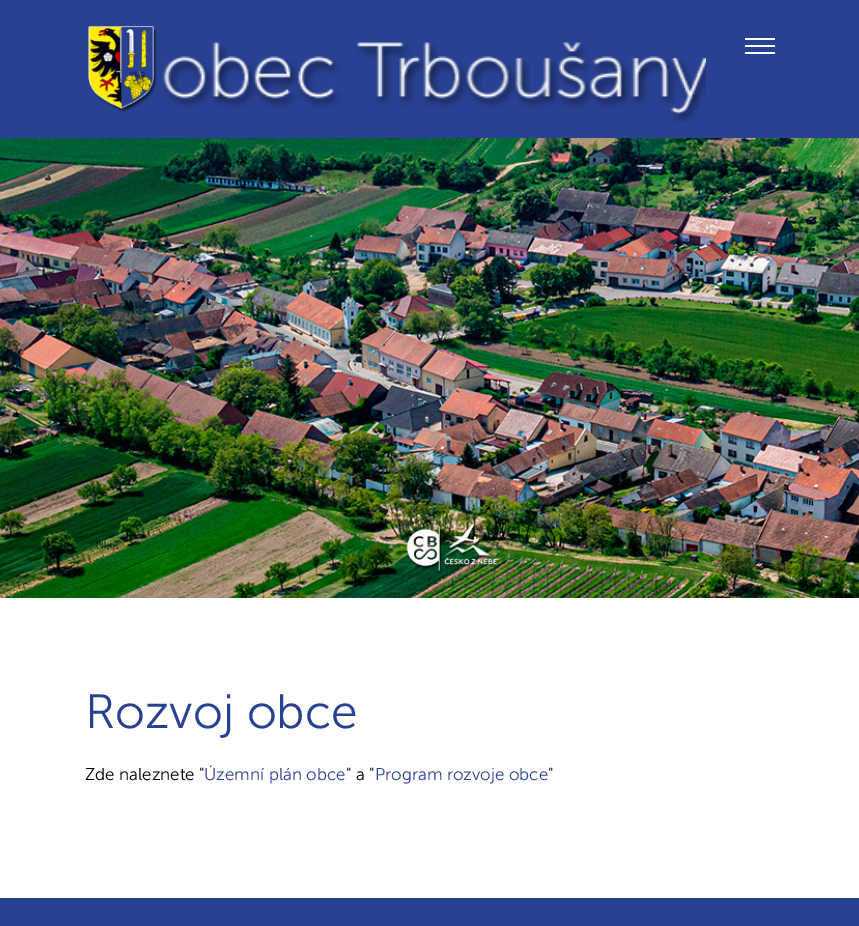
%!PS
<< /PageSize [859 926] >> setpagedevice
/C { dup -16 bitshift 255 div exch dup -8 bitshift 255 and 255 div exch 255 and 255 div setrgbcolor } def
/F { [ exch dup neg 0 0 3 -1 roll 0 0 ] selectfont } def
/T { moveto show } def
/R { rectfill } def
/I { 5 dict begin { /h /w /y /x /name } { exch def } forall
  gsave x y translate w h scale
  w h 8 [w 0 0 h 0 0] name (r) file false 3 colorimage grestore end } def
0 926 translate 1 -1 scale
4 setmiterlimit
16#FFFFFF C
0 0 859 926 R
16#294193 C
0 0 859 138 R
(1.rgb) 88 26 69 86 I
(2.rgb) 162 42 544 81 I
16#FFFFFF C
745 45 30 2 R
745 38 30 2 R
745 52 30 2 R
(3.rgb) 0 138 859 460 I
/MuseoSans-Light 48 F
16#294193 C
(Rozvoj obce) 85 728 T
/MuseoSans-Light 17 F
16#000000 C
(Zde naleznete ") 85 780 T
16#294193 C
(Územní plán obce) 204 780 T
16#000000 C
(" a ") 346 780 T
16#294193 C
(Program rozvoje obce) 375 780 T
16#000000 C
(") 548 780 T
16#294193 C
0 898 859 28 R
showpage
